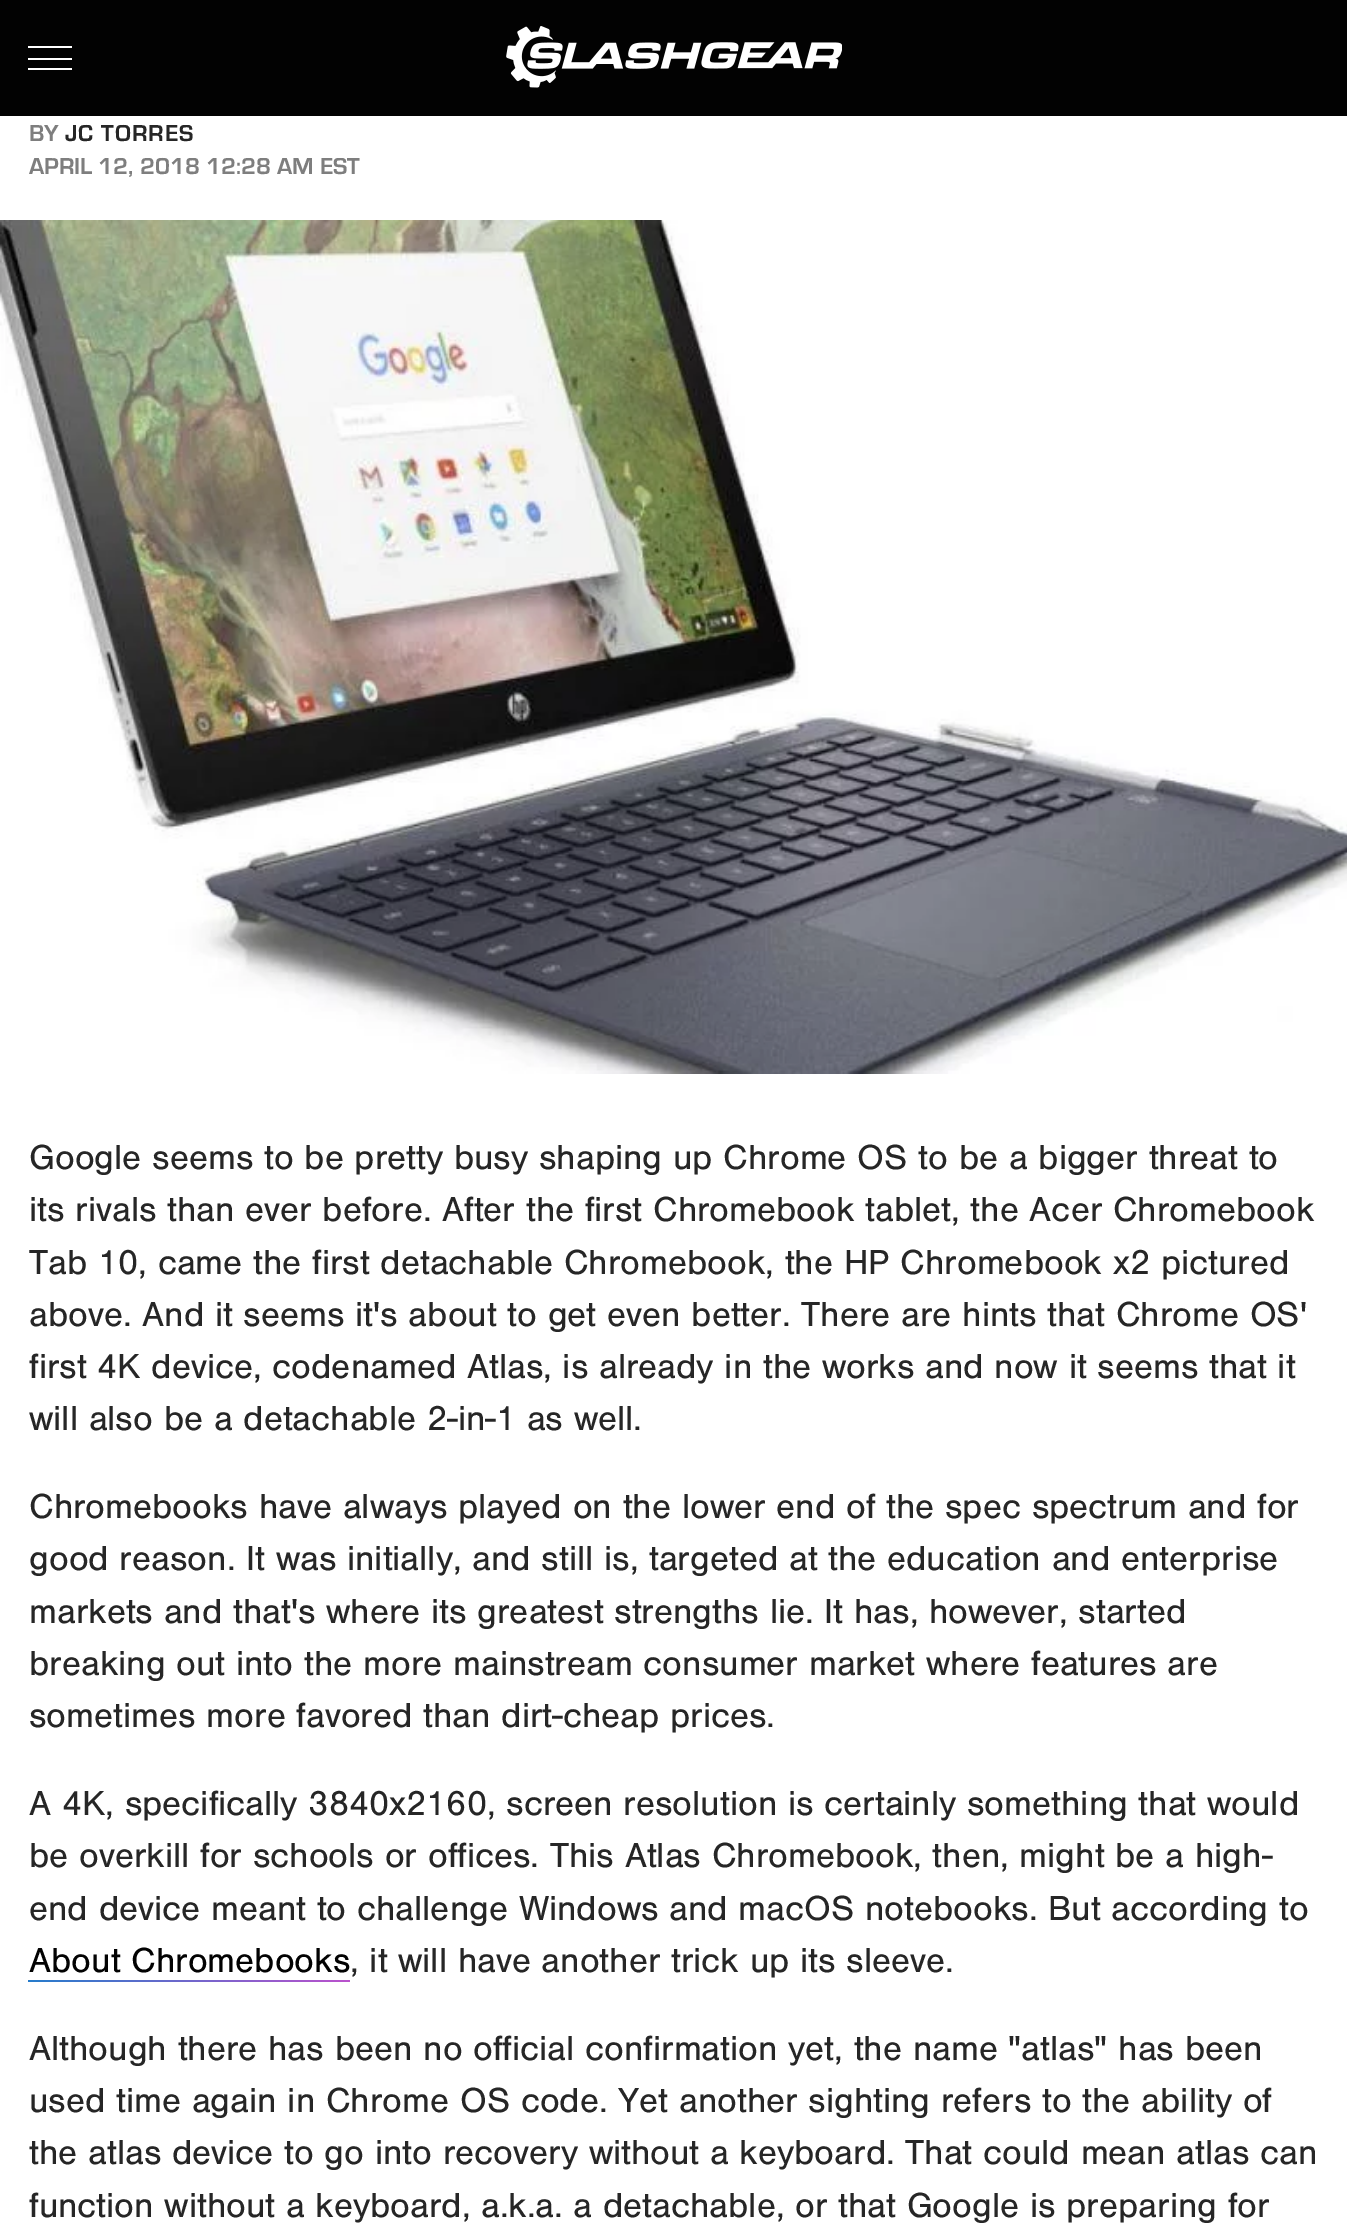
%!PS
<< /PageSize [1347 2234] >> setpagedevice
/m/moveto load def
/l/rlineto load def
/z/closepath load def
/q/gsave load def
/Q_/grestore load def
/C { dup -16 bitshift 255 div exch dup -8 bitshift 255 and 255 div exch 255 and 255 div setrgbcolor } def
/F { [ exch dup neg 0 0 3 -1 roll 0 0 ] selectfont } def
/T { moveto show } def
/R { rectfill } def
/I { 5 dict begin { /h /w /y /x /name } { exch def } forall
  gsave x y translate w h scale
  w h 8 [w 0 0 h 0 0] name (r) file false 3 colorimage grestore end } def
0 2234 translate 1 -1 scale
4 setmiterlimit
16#FFFFFF C
0 0 1347 2234 R
16#020202 C
0 0 1347 116 R
16#FFFFFF C
28 46 44 2 R
28 58 44 2 R
28 68 44 2 R
(1.rgb) 506 26 336 62 I
/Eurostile-Bold 21.6 F
16#7E7E7E C
(BY) 29 141 T
16#262626 C
65 141 m 1 0 (JC TORRES) ashow
16#7E7E7E C
(APRIL 12, 2018 12:28 AM EST) 29 174 T
(2.rgb) 0 220 1347 854 I
/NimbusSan-Regular 36 F
16#262626 C
(Google seems to be pretty busy shaping up Chrome OS to be a bigger threat to) 29 1169 T
(its rivals than ever before. After the first Chromebook tablet, the Acer Chromebook) 29 1221 T
(Tab 10, came the first detachable Chromebook, the HP Chromebook x2 pictured) 29 1274 T
(above. And it seems it's about to get even better. There are hints that Chrome OS') 29 1326 T
(first 4K device, codenamed Atlas, is already in the works and now it seems that it) 29 1378 T
(will also be a detachable 2-in-1 as well.) 29 1430 T
(Chromebooks have always played on the lower end of the spec spectrum and for) 29 1518 T
(good reason. It was initially, and still is, targeted at the education and enterprise) 29 1570 T
(markets and that's where its greatest strengths lie. It has, however, started) 29 1623 T
(breaking out into the more mainstream consumer market where features are) 29 1675 T
(sometimes more favored than dirt-cheap prices.) 29 1727 T
(A 4K, specifically 3840x2160, screen resolution is certainly something that would) 29 1815 T
(be overkill for schools or offices. This Atlas Chromebook, then, might be a high-) 29 1867 T
(end device meant to challenge Windows and macOS notebooks. But according to) 29 1920 T
16#020202 C
(About Chromebooks) 29 1972 T
q 28 1980 m 322 0 l 0 2 l -322 0 l z clip newpath
<< /ShadingType 2 /ColorSpace /DeviceRGB /Coords [28 1981 350 1981] /Extend [true true] /Function << /FunctionType 2 /Domain [0 1] /C0 [.149 .486 .796] /C1 [.733 .322 .804] /N 1 >> >> shfill Q_
16#262626 C
(, it will have another trick up its sleeve.) 350 1972 T
(Although there has been no official confirmation yet, the name "atlas" has been) 29 2060 T
(used time again in Chrome OS code. Yet another sighting refers to the ability of) 29 2112 T
(the atlas device to go into recovery without a keyboard. That could mean atlas can) 29 2164 T
(function without a keyboard, a.k.a. a detachable, or that Google is preparing for) 29 2217 T
showpage
